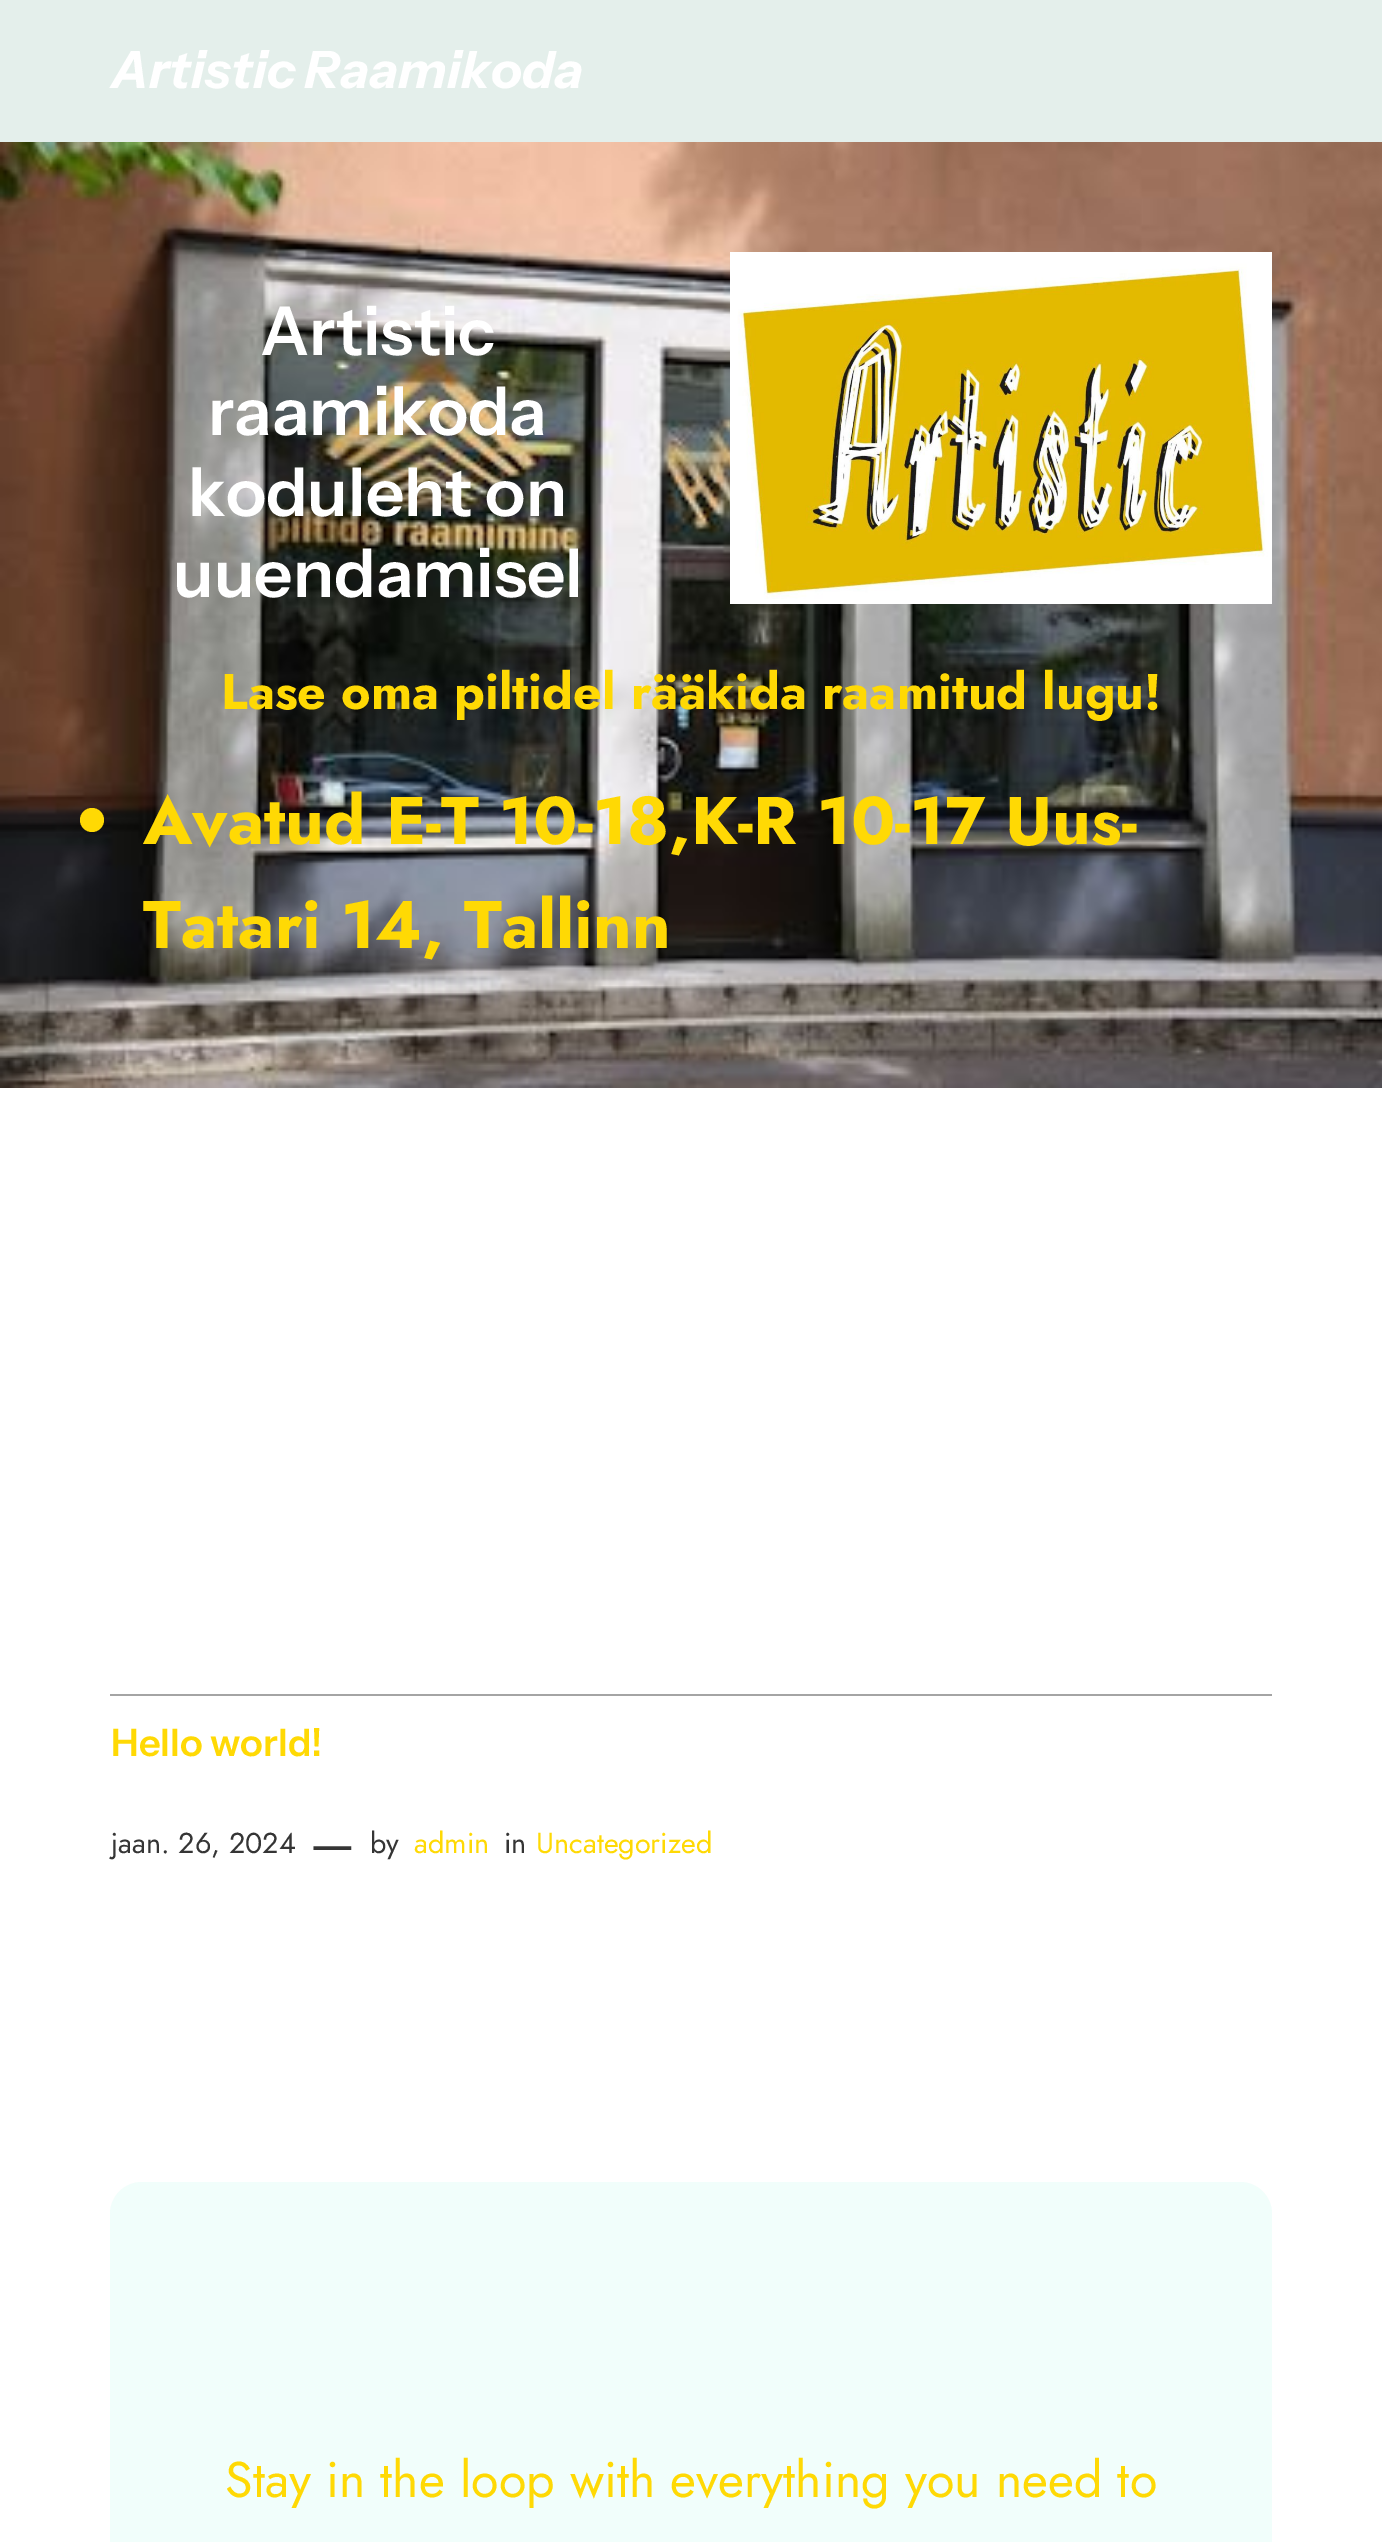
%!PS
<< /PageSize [1382 2542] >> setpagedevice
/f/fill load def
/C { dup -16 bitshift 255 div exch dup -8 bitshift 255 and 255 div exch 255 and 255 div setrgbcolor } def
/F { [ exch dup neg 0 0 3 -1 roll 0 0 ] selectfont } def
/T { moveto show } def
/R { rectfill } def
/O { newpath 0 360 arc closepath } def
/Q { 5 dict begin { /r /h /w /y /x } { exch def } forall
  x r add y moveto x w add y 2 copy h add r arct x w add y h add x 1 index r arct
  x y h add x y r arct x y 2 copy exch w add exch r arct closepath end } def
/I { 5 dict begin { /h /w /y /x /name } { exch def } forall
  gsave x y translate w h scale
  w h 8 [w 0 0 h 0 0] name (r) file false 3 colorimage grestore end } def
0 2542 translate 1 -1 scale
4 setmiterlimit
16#FFFFFF C
0 0 1382 2542 R
16#E4EFEB C
0 0 1382 142 R
/InstrumentSans-BoldItalic 51.5 F
16#FFFFFF C
(Artistic Raamikoda) 111 88 T
(1.rgb) 0 142 1382 946 I
(2.rgb) 730 252 542 352 I
/InstrumentSans-SemiBold 67.25 F
(Artistic) 260 355 T
(raamikoda) 208 435 T
(koduleht on) 188 516 T
(uuendamisel) 173 597 T
/Jost-Bold 50.2 F
16#FFD904 C
(Lase oma piltidel rääkida raamitud lugu!) 221 709 T
92 820 12 O f
/Jost-Bold 67.25 F
(Avatud E-T 10-18,K-R 10-17 Uus-) 143 844 T
(Tatari 14, Tallinn) 143 948 T
16#A4A4A4 C
110 1694 1162 2 R
/InstrumentSans-SemiBold 38 F
16#FFD904 C
(Hello world!) 111 1756 T
/Jost-Regular 28.75 F
16#353535 C
(jaan. 26, 2024) 111 1853 T
/Jost-Regular 50.2 F
(—) 310 1860 T
/Jost-Regular 28.75 F
(by) 370 1853 T
16#FFD904 C
(admin) 414 1853 T
16#353535 C
(in) 504 1853 T
16#FFD904 C
(Uncategorized) 536 1853 T
16#F1FEFB C
110 2182 1162 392 32 Q f
/Jost-Regular 50.2 F
16#FFD904 C
(Stay in the loop with everything you need to) 225 2497 T
showpage
